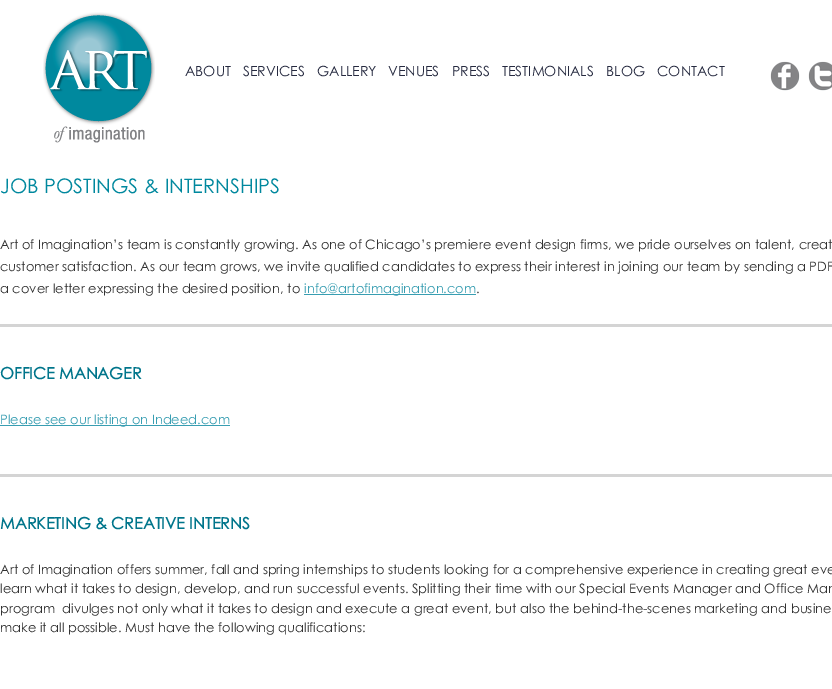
%!PS
<< /PageSize [832 689] >> setpagedevice
/C { dup -16 bitshift 255 div exch dup -8 bitshift 255 and 255 div exch 255 and 255 div setrgbcolor } def
/F { [ exch dup neg 0 0 3 -1 roll 0 0 ] selectfont } def
/T { moveto show } def
/R { rectfill } def
/I { 5 dict begin { /h /w /y /x /name } { exch def } forall
  gsave x y translate w h scale
  w h 8 [w 0 0 h 0 0] name (r) file false 3 colorimage grestore end } def
0 689 translate 1 -1 scale
4 setmiterlimit
16#FFFFFF C
0 0 832 689 R
(1.rgb) 43 12 112 131 I
/CenturyGothic-Regular 14 F
16#262A40 C
(ABOUT) 185 76 T
(SERVICES) 243 76 T
(GALLERY) 317 76 T
(VENUES) 388 76 T
(PRESS) 452 76 T
(TESTIMONIALS) 502 76 T
(BLOG) 606 76 T
(CONTACT) 657 76 T
(2.rgb) 770 61 30 30 I
(3.rgb) 808 61 24 30 I
/CenturyGothic-Regular 20 F
16#00889E C
(JOB POSTINGS & INTERNSHIPS) 0 193 T
/CenturyGothic-Regular 13 F
16#323232 C
(Art of Imagination’s team is constantly growing. As one of Chicago’s premiere event design firms, we pride ourselves on talent, creat) 0 249 T
(customer satisfaction. As our team grows, we invite qualified candidates to express their interest in joining our team by sending a PDF) 0 271 T
(a cover letter expressing the desired position, to) 0 293 T
16#389EB2 C
304 294 172 1 R
(info@artofimagination.com) 304 293 T
16#323232 C
(.) 476 293 T
16#D4D4D4 C
0 324 832 3 R
/CenturyGothic-Bold 16 F
16#00758B C
(OFFICE MANAGER) 0 379 T
16#389EB2 C
0 425 230 1 R
/CenturyGothic-Regular 13 F
(Please see our listing on Indeed.com) 0 424 T
16#D4D4D4 C
0 474 832 3 R
/CenturyGothic-Bold 16 F
16#00758B C
(MARKETING & CREATIVE INTERNS) 0 529 T
/CenturyGothic-Regular 13 F
16#323232 C
(Art of Imagination offers summer, fall and spring internships to students looking for a comprehensive experience in creating great eve) 0 574 T
(learn what it takes to design, develop, and run successful events. Splitting their time with our Special Events Manager and Office Man) 0 593 T
(program  divulges not only what it takes to design and execute a great event, but also the behind-the-scenes marketing and busine) 0 613 T
(make it all possible. Must have the following qualifications:) 0 632 T
showpage
